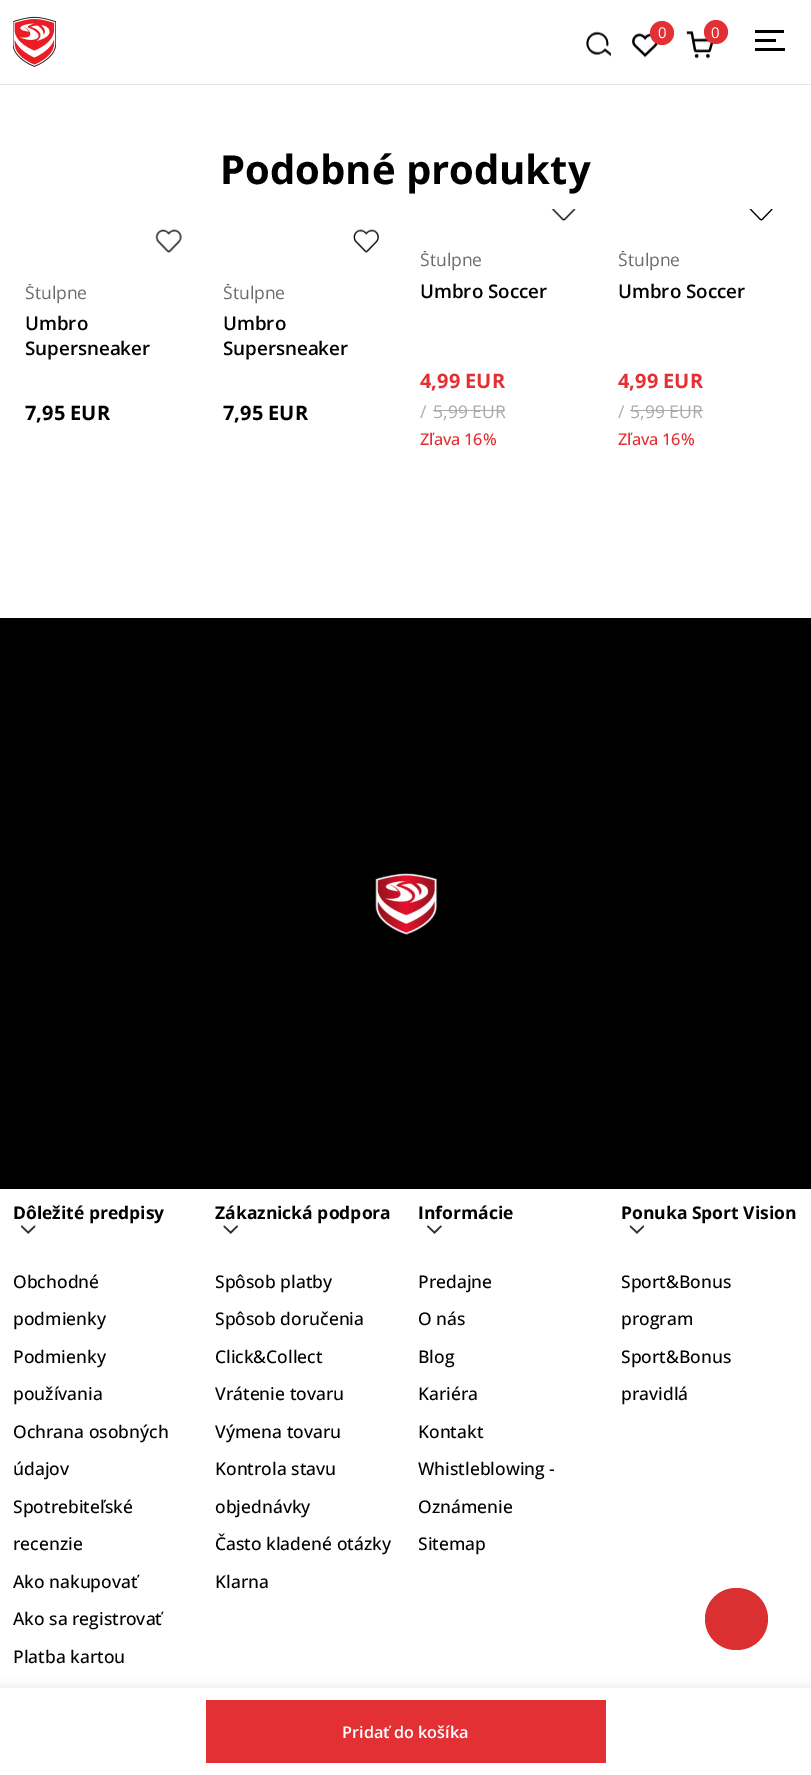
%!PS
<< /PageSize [811 1775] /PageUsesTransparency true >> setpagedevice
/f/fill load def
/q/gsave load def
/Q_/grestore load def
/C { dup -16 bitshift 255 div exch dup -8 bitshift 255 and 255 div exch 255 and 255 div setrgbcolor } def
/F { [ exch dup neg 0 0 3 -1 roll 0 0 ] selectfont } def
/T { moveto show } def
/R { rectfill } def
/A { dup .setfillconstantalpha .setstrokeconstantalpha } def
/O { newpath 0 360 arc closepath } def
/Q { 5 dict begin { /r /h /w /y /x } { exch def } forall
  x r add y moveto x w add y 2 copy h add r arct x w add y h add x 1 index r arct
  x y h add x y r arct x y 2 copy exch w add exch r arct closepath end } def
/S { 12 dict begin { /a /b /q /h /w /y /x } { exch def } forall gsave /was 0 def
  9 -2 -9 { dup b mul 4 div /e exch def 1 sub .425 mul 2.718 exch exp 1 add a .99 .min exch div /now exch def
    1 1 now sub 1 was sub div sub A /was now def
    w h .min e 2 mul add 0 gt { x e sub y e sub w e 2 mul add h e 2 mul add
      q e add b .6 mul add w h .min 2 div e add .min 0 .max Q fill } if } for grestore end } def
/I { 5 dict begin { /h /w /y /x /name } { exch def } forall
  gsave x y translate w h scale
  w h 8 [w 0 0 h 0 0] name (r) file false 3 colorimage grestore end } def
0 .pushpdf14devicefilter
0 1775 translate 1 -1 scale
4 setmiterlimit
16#FFFFFF C
0 0 811 1775 R
(1.rgb) 586 31 25 26 I
16#E5E5E5 C
0 84 811 1 R
(2.rgb) 13 16 43 51 I
(3.rgb) 632 33 26 25 I
16#E23034 C
662 33 12 O f
/OpenSans-Regular 15 F
16#FFFFFF C
(0) 658 38 T
(4.rgb) 686 31 28 28 I
16#E23034 C
716 32 12 O f
16#FFFFFF C
(0) 711 38 T
16#000000 C
755 39 21 3 R
755 30 29 3 R
755 48 30 3 R
/OpenSans-Bold 40 F
(Podobné produkty) 220 184 T
(5.rgb) 155 229 27 24 I
q
25 284 173 21 rectclip
/OpenSans-Regular 17.5 F
16#6B6B6B C
(Štulpne) 25 299 T
Q_
/OpenSans-SemiBold 18.75 F
(Umbro) 25 330 T
(Supersneaker) 25 355 T
/OpenSans-Bold 20 F
(7,95 EUR) 25 420 T
(6.rgb) 353 229 26 24 I
q
223 284 172 21 rectclip
/OpenSans-Regular 17.5 F
16#6B6B6B C
(Štulpne) 223 299 T
Q_
/OpenSans-SemiBold 18.75 F
(Umbro) 223 330 T
(Supersneaker) 223 355 T
/OpenSans-Bold 20 F
(7,95 EUR) 223 420 T
(7.rgb) 551 209 25 12 I
q
420 251 173 22 rectclip
/OpenSans-Regular 17.5 F
16#6B6B6B C
(Štulpne) 420 266 T
Q_
/OpenSans-SemiBold 18.75 F
(Umbro Soccer) 420 298 T
/OpenSans-Bold 20 F
16#E23034 C
(4,99 EUR) 420 388 T
/OpenSans-Regular 17.5 F
16#AAAAAA C
(/) 420 418 T
(5,99 EUR) 433 418 T
433 410 72 1 R
/OpenSans-Medium 16.25 F
16#E23034 C
(Zľava) 420 445 T
(16%) 464 445 T
(8.rgb) 749 209 24 12 I
q
618 251 172 22 rectclip
/OpenSans-Regular 17.5 F
16#6B6B6B C
(Štulpne) 618 266 T
Q_
/OpenSans-SemiBold 18.75 F
16#000000 C
(Umbro Soccer) 618 298 T
/OpenSans-Bold 20 F
16#E23034 C
(4,99 EUR) 618 388 T
/OpenSans-Regular 17.5 F
16#AAAAAA C
(/) 618 418 T
(5,99 EUR) 630 418 T
630 410 73 1 R
/OpenSans-Medium 16.25 F
16#E23034 C
(Zľava) 618 445 T
(16%) 662 445 T
16#000000 C
0 1688 811 87 0 6 .1 S
16#FFFFFF C
0 1688 811 87 R
16#E23034 C
206 1700 400 63 R
/OpenSans-SemiBold 16.25 F
16#FFFFFF C
(Pridať do košíka) 342 1738 T
16#000000 C
0 618 811 571 R
(9.rgb) 375 873 63 63 I
/OpenSans-Bold 17.5 F
(Dôležité predpisy) 13 1219 T
(10.rgb) 20 1225 16 9 I
/OpenSans-Medium 17.5 F
(Obchodné) 13 1288 T
(podmienky) 13 1325 T
(Podmienky) 13 1363 T
(používania) 13 1400 T
(Ochrana osobných) 13 1438 T
(údajov) 13 1475 T
(Spotrebiteľské) 13 1513 T
(recenzie) 13 1550 T
(Ako nakupovať) 13 1588 T
(Ako sa registrovať) 13 1625 T
(Platba kartou) 13 1663 T
/OpenSans-Bold 17.5 F
(Zákaznická podpora) 215 1219 T
(11.rgb) 223 1225 15 9 I
/OpenSans-Medium 17.5 F
(Spôsob platby) 215 1288 T
(Spôsob doručenia) 215 1325 T
(Click&Collect) 215 1363 T
(Vrátenie tovaru) 215 1400 T
(Výmena tovaru) 215 1438 T
(Kontrola stavu) 215 1475 T
(objednávky) 215 1513 T
(Často kladené otázky) 215 1550 T
(Klarna) 215 1588 T
/OpenSans-Bold 17.5 F
(Informácie) 418 1219 T
(12.rgb) 427 1225 15 9 I
/OpenSans-Medium 17.5 F
(Predajne) 418 1288 T
(O nás) 418 1325 T
(Blog) 418 1363 T
(Kariéra) 418 1400 T
(Kontakt) 418 1438 T
(Whistleblowing -) 418 1475 T
(Oznámenie) 418 1513 T
(Sitemap) 418 1550 T
/OpenSans-Bold 17.5 F
(Ponuka Sport Vision) 621 1219 T
(13.rgb) 629 1225 16 9 I
/OpenSans-Medium 17.5 F
(Sport&Bonus) 621 1288 T
(program) 621 1325 T
(Sport&Bonus) 621 1363 T
(pravidlá) 621 1400 T
16#DA3032 C
705 1588 63 62 31 Q f
.poppdf14devicefilter showpage
